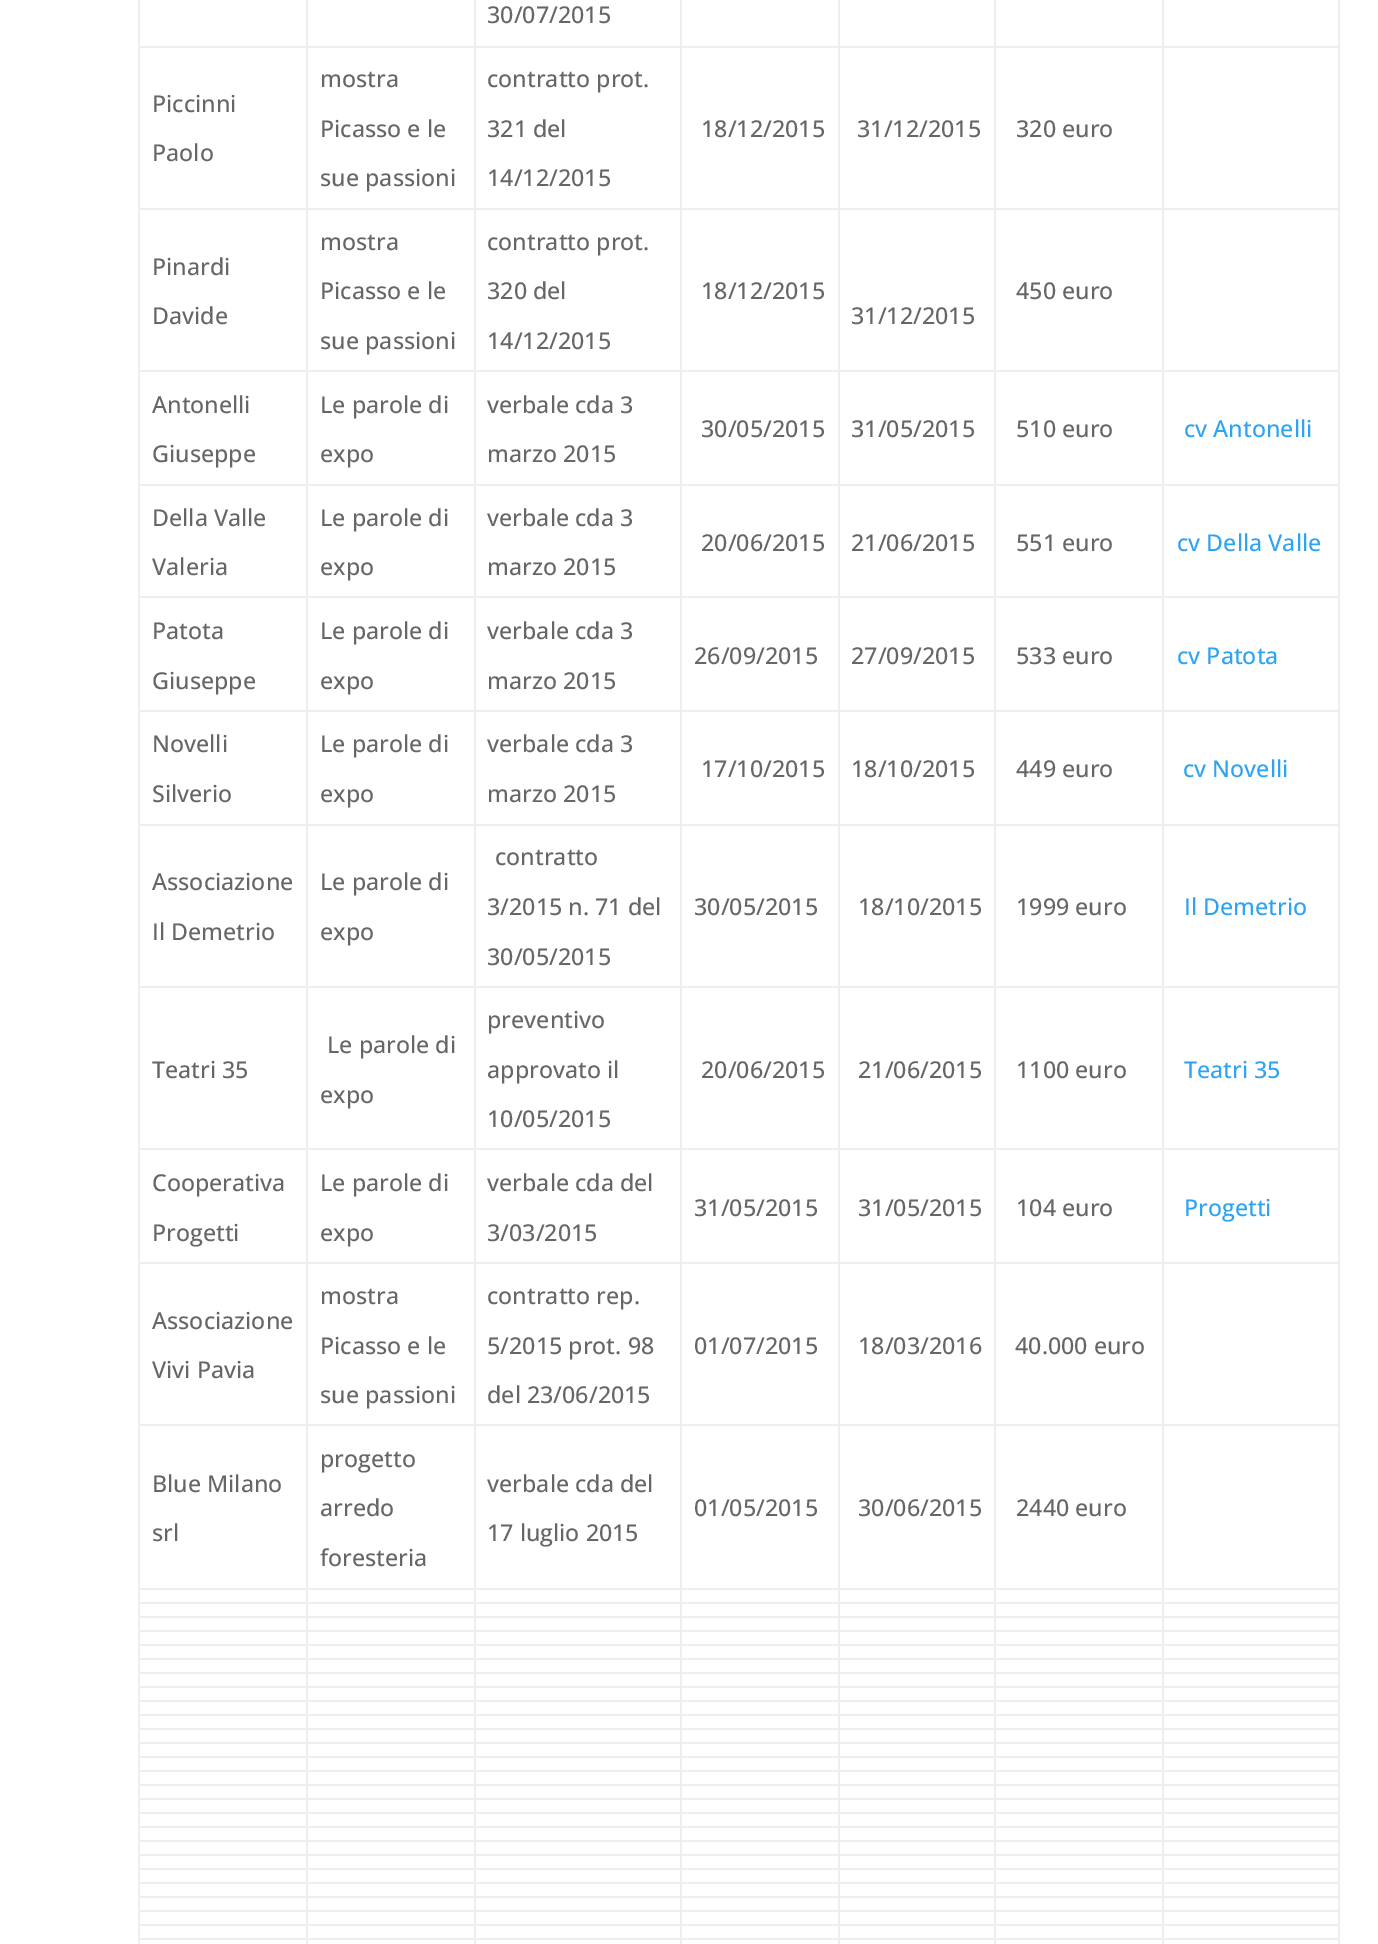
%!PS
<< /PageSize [1378 1944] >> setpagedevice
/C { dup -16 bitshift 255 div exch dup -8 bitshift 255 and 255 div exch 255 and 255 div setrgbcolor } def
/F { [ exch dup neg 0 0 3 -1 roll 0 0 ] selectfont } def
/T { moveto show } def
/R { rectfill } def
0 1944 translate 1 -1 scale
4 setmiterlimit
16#FFFFFF C
0 0 1378 1944 R
16#EEEEEE C
1338 0 2 1944 R
138 0 2 1944 R
1162 46 178 2 R
1162 208 178 2 R
1162 370 178 2 R
1162 484 178 2 R
1162 596 178 2 R
1162 710 178 2 R
1162 824 178 2 R
1162 986 178 2 R
1162 1148 178 2 R
1162 1262 178 2 R
1162 1424 178 2 R
1162 1588 178 2 R
1162 1602 178 2 R
1162 1616 178 2 R
1162 1630 178 2 R
1162 1644 178 2 R
1162 1658 178 2 R
1162 1672 178 2 R
1162 1686 178 2 R
1162 1700 178 2 R
1162 1714 178 2 R
1162 1728 178 2 R
1162 1742 178 2 R
1162 1756 178 2 R
1162 1770 178 2 R
1162 1784 178 2 R
1162 1798 178 2 R
1162 1812 178 2 R
1162 1826 178 2 R
1162 1840 178 2 R
1162 1854 178 2 R
1162 1868 178 2 R
1162 1882 178 2 R
1162 1896 178 2 R
1162 1910 178 2 R
1162 1924 178 2 R
1162 1938 178 2 R
1162 1938 2 6 R
994 1938 170 2 R
1162 1924 2 16 R
994 1924 170 2 R
1162 1910 2 16 R
994 1910 170 2 R
1162 1896 2 16 R
994 1896 170 2 R
1162 1882 2 16 R
994 1882 170 2 R
1162 1868 2 16 R
994 1868 170 2 R
1162 1854 2 16 R
994 1854 170 2 R
1162 1840 2 16 R
994 1840 170 2 R
1162 1826 2 16 R
994 1826 170 2 R
1162 1812 2 16 R
994 1812 170 2 R
1162 1798 2 16 R
994 1798 170 2 R
1162 1784 2 16 R
994 1784 170 2 R
1162 1770 2 16 R
994 1770 170 2 R
1162 1756 2 16 R
994 1756 170 2 R
1162 1742 2 16 R
994 1742 170 2 R
1162 1728 2 16 R
994 1728 170 2 R
1162 1714 2 16 R
994 1714 170 2 R
1162 1700 2 16 R
994 1700 170 2 R
1162 1686 2 16 R
994 1686 170 2 R
1162 1672 2 16 R
994 1672 170 2 R
1162 1658 2 16 R
994 1658 170 2 R
1162 1644 2 16 R
994 1644 170 2 R
1162 1630 2 16 R
994 1630 170 2 R
1162 1616 2 16 R
994 1616 170 2 R
1162 1602 2 16 R
994 1602 170 2 R
1162 1588 2 16 R
994 1588 170 2 R
1162 1424 2 166 R
994 1424 170 2 R
1162 1262 2 164 R
994 1262 170 2 R
1162 1148 2 116 R
994 1148 170 2 R
1162 986 2 164 R
994 986 170 2 R
1162 824 2 164 R
994 824 170 2 R
1162 710 2 116 R
994 710 170 2 R
1162 596 2 116 R
994 596 170 2 R
1162 484 2 114 R
994 484 170 2 R
1162 370 2 116 R
994 370 170 2 R
1162 208 2 164 R
994 208 170 2 R
1162 46 2 164 R
994 46 170 2 R
994 1938 2 6 R
838 1938 158 2 R
994 1924 2 16 R
838 1924 158 2 R
994 1910 2 16 R
838 1910 158 2 R
994 1896 2 16 R
838 1896 158 2 R
994 1882 2 16 R
838 1882 158 2 R
994 1868 2 16 R
838 1868 158 2 R
994 1854 2 16 R
838 1854 158 2 R
994 1840 2 16 R
838 1840 158 2 R
994 1826 2 16 R
838 1826 158 2 R
994 1812 2 16 R
838 1812 158 2 R
994 1798 2 16 R
838 1798 158 2 R
994 1784 2 16 R
838 1784 158 2 R
994 1770 2 16 R
838 1770 158 2 R
994 1756 2 16 R
838 1756 158 2 R
994 1742 2 16 R
838 1742 158 2 R
994 1728 2 16 R
838 1728 158 2 R
994 1714 2 16 R
838 1714 158 2 R
994 1700 2 16 R
838 1700 158 2 R
994 1686 2 16 R
838 1686 158 2 R
994 1672 2 16 R
838 1672 158 2 R
994 1658 2 16 R
838 1658 158 2 R
994 1644 2 16 R
838 1644 158 2 R
994 1630 2 16 R
838 1630 158 2 R
994 1616 2 16 R
838 1616 158 2 R
994 1602 2 16 R
838 1602 158 2 R
994 1588 2 16 R
838 1588 158 2 R
994 1424 2 166 R
838 1424 158 2 R
994 1262 2 164 R
838 1262 158 2 R
994 1148 2 116 R
838 1148 158 2 R
994 986 2 164 R
838 986 158 2 R
994 824 2 164 R
838 824 158 2 R
994 710 2 116 R
838 710 158 2 R
994 596 2 116 R
838 596 158 2 R
994 484 2 114 R
838 484 158 2 R
994 370 2 116 R
838 370 158 2 R
994 208 2 164 R
838 208 158 2 R
994 46 2 164 R
838 46 158 2 R
838 1938 2 6 R
680 1938 160 2 R
838 1924 2 16 R
680 1924 160 2 R
838 1910 2 16 R
680 1910 160 2 R
838 1896 2 16 R
680 1896 160 2 R
838 1882 2 16 R
680 1882 160 2 R
838 1868 2 16 R
680 1868 160 2 R
838 1854 2 16 R
680 1854 160 2 R
838 1840 2 16 R
680 1840 160 2 R
838 1826 2 16 R
680 1826 160 2 R
838 1812 2 16 R
680 1812 160 2 R
838 1798 2 16 R
680 1798 160 2 R
838 1784 2 16 R
680 1784 160 2 R
838 1770 2 16 R
680 1770 160 2 R
838 1756 2 16 R
680 1756 160 2 R
838 1742 2 16 R
680 1742 160 2 R
838 1728 2 16 R
680 1728 160 2 R
838 1714 2 16 R
680 1714 160 2 R
838 1700 2 16 R
680 1700 160 2 R
838 1686 2 16 R
680 1686 160 2 R
838 1672 2 16 R
680 1672 160 2 R
838 1658 2 16 R
680 1658 160 2 R
838 1644 2 16 R
680 1644 160 2 R
838 1630 2 16 R
680 1630 160 2 R
838 1616 2 16 R
680 1616 160 2 R
838 1602 2 16 R
680 1602 160 2 R
838 1588 2 16 R
680 1588 160 2 R
838 1424 2 166 R
680 1424 160 2 R
838 1262 2 164 R
680 1262 160 2 R
838 1148 2 116 R
680 1148 160 2 R
838 986 2 164 R
680 986 160 2 R
838 824 2 164 R
680 824 160 2 R
838 710 2 116 R
680 710 160 2 R
838 596 2 116 R
680 596 160 2 R
838 484 2 114 R
680 484 160 2 R
838 370 2 116 R
680 370 160 2 R
838 208 2 164 R
680 208 160 2 R
838 46 2 164 R
680 46 160 2 R
680 1938 2 6 R
474 1938 208 2 R
680 1924 2 16 R
474 1924 208 2 R
680 1910 2 16 R
474 1910 208 2 R
680 1896 2 16 R
474 1896 208 2 R
680 1882 2 16 R
474 1882 208 2 R
680 1868 2 16 R
474 1868 208 2 R
680 1854 2 16 R
474 1854 208 2 R
680 1840 2 16 R
474 1840 208 2 R
680 1826 2 16 R
474 1826 208 2 R
680 1812 2 16 R
474 1812 208 2 R
680 1798 2 16 R
474 1798 208 2 R
680 1784 2 16 R
474 1784 208 2 R
680 1770 2 16 R
474 1770 208 2 R
680 1756 2 16 R
474 1756 208 2 R
680 1742 2 16 R
474 1742 208 2 R
680 1728 2 16 R
474 1728 208 2 R
680 1714 2 16 R
474 1714 208 2 R
680 1700 2 16 R
474 1700 208 2 R
680 1686 2 16 R
474 1686 208 2 R
680 1672 2 16 R
474 1672 208 2 R
680 1658 2 16 R
474 1658 208 2 R
680 1644 2 16 R
474 1644 208 2 R
680 1630 2 16 R
474 1630 208 2 R
680 1616 2 16 R
474 1616 208 2 R
680 1602 2 16 R
474 1602 208 2 R
680 1588 2 16 R
474 1588 208 2 R
680 1424 2 166 R
474 1424 208 2 R
680 1262 2 164 R
474 1262 208 2 R
680 1148 2 116 R
474 1148 208 2 R
680 986 2 164 R
474 986 208 2 R
680 824 2 164 R
474 824 208 2 R
680 710 2 116 R
474 710 208 2 R
680 596 2 116 R
474 596 208 2 R
680 484 2 114 R
474 484 208 2 R
680 370 2 116 R
474 370 208 2 R
680 208 2 164 R
474 208 208 2 R
680 46 2 164 R
474 46 208 2 R
474 1938 2 6 R
306 1938 170 2 R
474 1924 2 16 R
306 1924 170 2 R
474 1910 2 16 R
306 1910 170 2 R
474 1896 2 16 R
306 1896 170 2 R
474 1882 2 16 R
306 1882 170 2 R
474 1868 2 16 R
306 1868 170 2 R
474 1854 2 16 R
306 1854 170 2 R
474 1840 2 16 R
306 1840 170 2 R
474 1826 2 16 R
306 1826 170 2 R
474 1812 2 16 R
306 1812 170 2 R
474 1798 2 16 R
306 1798 170 2 R
474 1784 2 16 R
306 1784 170 2 R
474 1770 2 16 R
306 1770 170 2 R
474 1756 2 16 R
306 1756 170 2 R
474 1742 2 16 R
306 1742 170 2 R
474 1728 2 16 R
306 1728 170 2 R
474 1714 2 16 R
306 1714 170 2 R
474 1700 2 16 R
306 1700 170 2 R
474 1686 2 16 R
306 1686 170 2 R
474 1672 2 16 R
306 1672 170 2 R
474 1658 2 16 R
306 1658 170 2 R
474 1644 2 16 R
306 1644 170 2 R
474 1630 2 16 R
306 1630 170 2 R
474 1616 2 16 R
306 1616 170 2 R
474 1602 2 16 R
306 1602 170 2 R
474 1588 2 16 R
306 1588 170 2 R
474 1424 2 166 R
306 1424 170 2 R
474 1262 2 164 R
306 1262 170 2 R
474 1148 2 116 R
306 1148 170 2 R
474 986 2 164 R
306 986 170 2 R
474 824 2 164 R
306 824 170 2 R
474 710 2 116 R
306 710 170 2 R
474 596 2 116 R
306 596 170 2 R
474 484 2 114 R
306 484 170 2 R
474 370 2 116 R
306 370 170 2 R
474 208 2 164 R
306 208 170 2 R
474 46 2 164 R
306 46 170 2 R
306 1938 2 6 R
138 1938 170 2 R
306 1924 2 16 R
138 1924 170 2 R
306 1910 2 16 R
138 1910 170 2 R
306 1896 2 16 R
138 1896 170 2 R
306 1882 2 16 R
138 1882 170 2 R
306 1868 2 16 R
138 1868 170 2 R
306 1854 2 16 R
138 1854 170 2 R
306 1840 2 16 R
138 1840 170 2 R
306 1826 2 16 R
138 1826 170 2 R
306 1812 2 16 R
138 1812 170 2 R
306 1798 2 16 R
138 1798 170 2 R
306 1784 2 16 R
138 1784 170 2 R
306 1770 2 16 R
138 1770 170 2 R
306 1756 2 16 R
138 1756 170 2 R
306 1742 2 16 R
138 1742 170 2 R
306 1728 2 16 R
138 1728 170 2 R
306 1714 2 16 R
138 1714 170 2 R
306 1700 2 16 R
138 1700 170 2 R
306 1686 2 16 R
138 1686 170 2 R
306 1672 2 16 R
138 1672 170 2 R
306 1658 2 16 R
138 1658 170 2 R
306 1644 2 16 R
138 1644 170 2 R
306 1630 2 16 R
138 1630 170 2 R
306 1616 2 16 R
138 1616 170 2 R
306 1602 2 16 R
138 1602 170 2 R
306 1588 2 16 R
138 1588 170 2 R
306 1424 2 166 R
138 1424 170 2 R
306 1262 2 164 R
138 1262 170 2 R
306 1148 2 116 R
138 1148 170 2 R
306 986 2 164 R
138 986 170 2 R
306 824 2 164 R
138 824 170 2 R
306 710 2 116 R
138 710 170 2 R
306 596 2 116 R
138 596 170 2 R
306 484 2 114 R
138 484 170 2 R
306 370 2 116 R
138 370 170 2 R
306 208 2 164 R
138 208 170 2 R
306 46 2 164 R
138 46 170 2 R
306 0 2 48 R
474 0 2 48 R
/OpenSans-Medium 23.25 F
16#666666 C
(30/07/2015) 487 23 T
16#EEEEEE C
680 0 2 48 R
838 0 2 48 R
994 0 2 48 R
1162 0 2 48 R
16#666666 C
(Piccinni) 152 112 T
(Paolo) 152 161 T
(mostra) 320 87 T
(Picasso e le) 320 137 T
(sue passioni) 320 186 T
(contratto prot.) 487 87 T
(321 del) 487 137 T
(14/12/2015) 487 186 T
(18/12/2015) 701 137 T
(31/12/2015) 857 137 T
(320 euro) 1016 137 T
(Pinardi) 152 275 T
(Davide) 152 324 T
(mostra) 320 250 T
(Picasso e le) 320 299 T
(sue passioni) 320 349 T
(contratto prot.) 487 250 T
(320 del) 487 299 T
(14/12/2015) 487 349 T
(18/12/2015) 701 299 T
(450 euro) 1016 299 T
(31/12/2015) 851 324 T
(Antonelli) 152 413 T
(Giuseppe) 152 462 T
(Le parole di) 320 413 T
(expo) 320 462 T
(verbale cda 3) 487 413 T
(marzo 2015) 487 462 T
(30/05/2015) 701 437 T
(31/05/2015) 851 437 T
(510 euro) 1016 437 T
16#2EA3F2 C
(cv Antonelli) 1184 437 T
16#666666 C
(Della Valle) 152 526 T
(Valeria) 152 575 T
(Le parole di) 320 526 T
(expo) 320 575 T
(verbale cda 3) 487 526 T
(marzo 2015) 487 575 T
(20/06/2015) 701 551 T
(21/06/2015) 851 551 T
(551 euro) 1016 551 T
16#2EA3F2 C
(cv Della Valle) 1177 551 T
16#666666 C
(Patota) 152 639 T
(Giuseppe) 152 689 T
(Le parole di) 320 639 T
(expo) 320 689 T
(verbale cda 3) 487 639 T
(marzo 2015) 487 689 T
(26/09/2015) 694 664 T
(27/09/2015) 851 664 T
(533 euro) 1016 664 T
16#2EA3F2 C
(cv Patota) 1177 664 T
16#666666 C
(Novelli) 152 752 T
(Silverio) 152 802 T
(Le parole di) 320 752 T
(expo) 320 802 T
(verbale cda 3) 487 752 T
(marzo 2015) 487 802 T
(17/10/2015) 701 777 T
(18/10/2015) 851 777 T
(449 euro) 1016 777 T
16#2EA3F2 C
(cv Novelli) 1183 777 T
16#666666 C
(Associazione) 152 890 T
(Il Demetrio) 152 940 T
(Le parole di) 320 890 T
(expo) 320 940 T
(contratto) 495 865 T
(3/2015 n. 71 del) 487 915 T
(30/05/2015) 487 965 T
(30/05/2015) 694 915 T
(18/10/2015) 858 915 T
(1999 euro) 1016 915 T
16#2EA3F2 C
(Il Demetrio) 1184 915 T
16#666666 C
(Teatri 35) 152 1078 T
(Le parole di) 327 1053 T
(expo) 320 1103 T
(preventivo) 487 1028 T
(approvato il) 487 1078 T
(10/05/2015) 487 1127 T
(20/06/2015) 701 1078 T
(21/06/2015) 858 1078 T
(1100 euro) 1016 1078 T
16#2EA3F2 C
(Teatri 35) 1184 1078 T
16#666666 C
(Cooperativa) 152 1191 T
(Progetti) 152 1241 T
(Le parole di) 320 1191 T
(expo) 320 1241 T
(verbale cda del) 487 1191 T
(3/03/2015) 487 1241 T
(31/05/2015) 694 1216 T
(31/05/2015) 858 1216 T
(104 euro) 1016 1216 T
16#2EA3F2 C
(Progetti) 1184 1216 T
16#666666 C
(Associazione) 152 1329 T
(Vivi Pavia) 152 1378 T
(mostra) 320 1304 T
(Picasso e le) 320 1354 T
(sue passioni) 320 1403 T
(contratto rep.) 487 1304 T
(5/2015 prot. 98) 487 1354 T
(del 23/06/2015) 487 1403 T
(01/07/2015) 694 1354 T
(18/03/2016) 858 1354 T
(40.000 euro) 1015 1354 T
(Blue Milano) 152 1492 T
(srl) 152 1541 T
(progetto) 320 1467 T
(arredo) 320 1516 T
(foresteria) 320 1566 T
(verbale cda del) 487 1492 T
(17 luglio 2015) 487 1541 T
(01/05/2015) 694 1516 T
(30/06/2015) 858 1516 T
(2440 euro) 1016 1516 T
showpage
